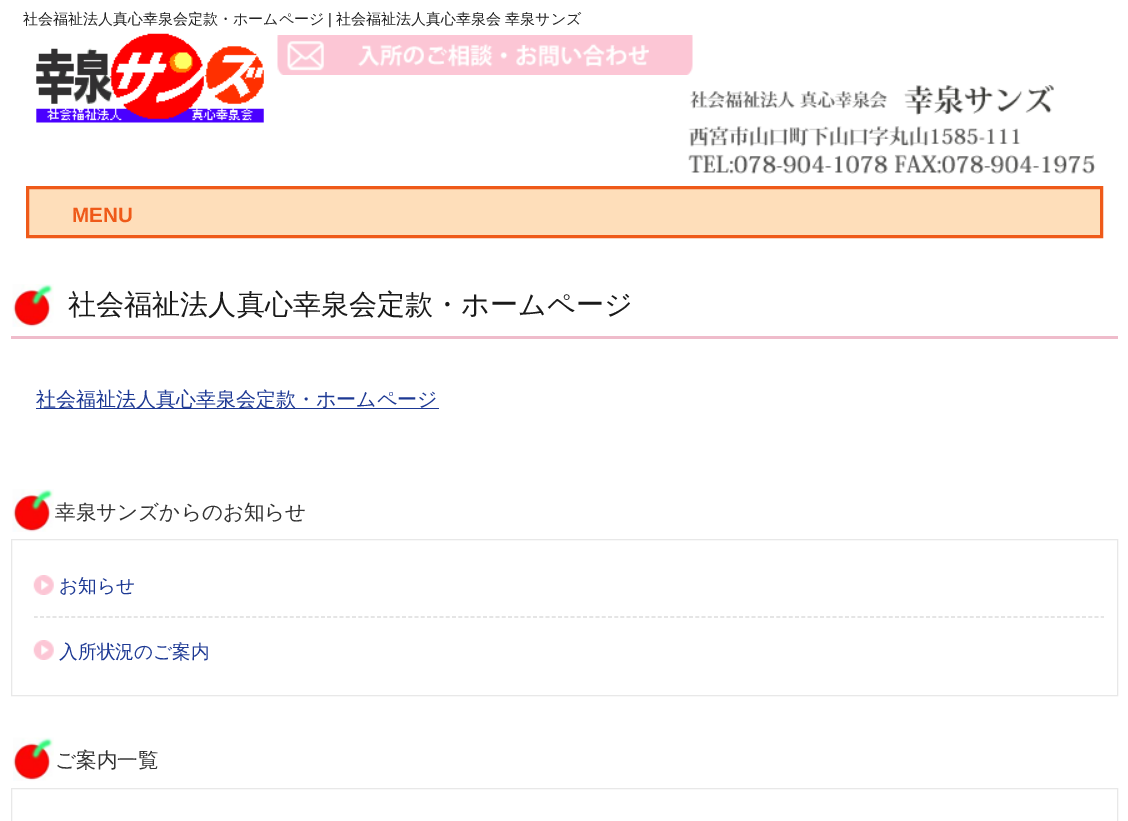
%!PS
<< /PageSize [1128 821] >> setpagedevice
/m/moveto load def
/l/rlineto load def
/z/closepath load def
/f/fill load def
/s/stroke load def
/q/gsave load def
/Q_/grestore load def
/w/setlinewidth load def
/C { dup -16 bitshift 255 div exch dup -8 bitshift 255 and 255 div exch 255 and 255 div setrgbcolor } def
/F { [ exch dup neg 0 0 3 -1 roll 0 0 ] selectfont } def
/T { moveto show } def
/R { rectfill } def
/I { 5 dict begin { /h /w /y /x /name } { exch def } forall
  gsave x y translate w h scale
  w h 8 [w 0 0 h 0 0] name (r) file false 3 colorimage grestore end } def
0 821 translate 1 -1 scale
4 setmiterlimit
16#FFFFFF C
0 0 1128 821 R
/WenQuanYiZenHei-Medium 15 F
16#222222 C
(社会福祉法人真心幸泉会定款・ホームページ) 23 24 T
/LiberationSans-Regular 15 F
(|) 328 24 T
/WenQuanYiZenHei-Medium 15 F
(社会福祉法人真心幸泉会 幸泉サンズ) 336 24 T
(1.rgb) 36 33 228 90 I
(2.rgb) 277 35 416 40 I
(3.rgb) 688 85 408 89 I
16#FEDEBA C
27.5 187.5 m 1074 0 l 0 49 l -1074 0 l z q f Q_
16#EF5A19 C
3 w
s
/LiberationSans-Bold 20.6 F
(MENU) 72 222 T
(4.rgb) 12 284 42 43 I
16#EFBCCB C
11 336 1107 3 R
/WenQuanYiZenHei-Medium 28.1 F
16#1A1A1A C
(社会福祉法人真心幸泉会定款・ホームページ) 68 314 T
16#1D3994 C
36 408 403 1 R
/WenQuanYiZenHei-Medium 20 F
(社会福祉法人真心幸泉会定款・ホームページ) 36 406 T
(5.rgb) 12 489 42 43 I
/WenQuanYiZenHei-Medium 20.6 F
16#333333 C
(幸泉サンズからのお知らせ) 55 519 T
16#E8E8E8 C
1 w
11.5 539.5 1106 156 rectstroke
(6.rgb) 33 575 21 20 I
16#DCDCDC C
1.2 w
[3.75 2.49] 0 setdash
34 617 m 1070 0 l s
/WenQuanYiZenHei-Medium 18.75 F
16#1D3994 C
(お知らせ) 59 592 T
(7.rgb) 33 640 21 20 I
(入所状況のご案内) 59 658 T
(8.rgb) 13 737 41 44 I
/WenQuanYiZenHei-Medium 20.6 F
16#333333 C
(ご案内一覧) 55 767 T
16#E8E8E8 C
1 w
[] 0 setdash
11.5 788.5 1106 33 rectstroke
showpage
